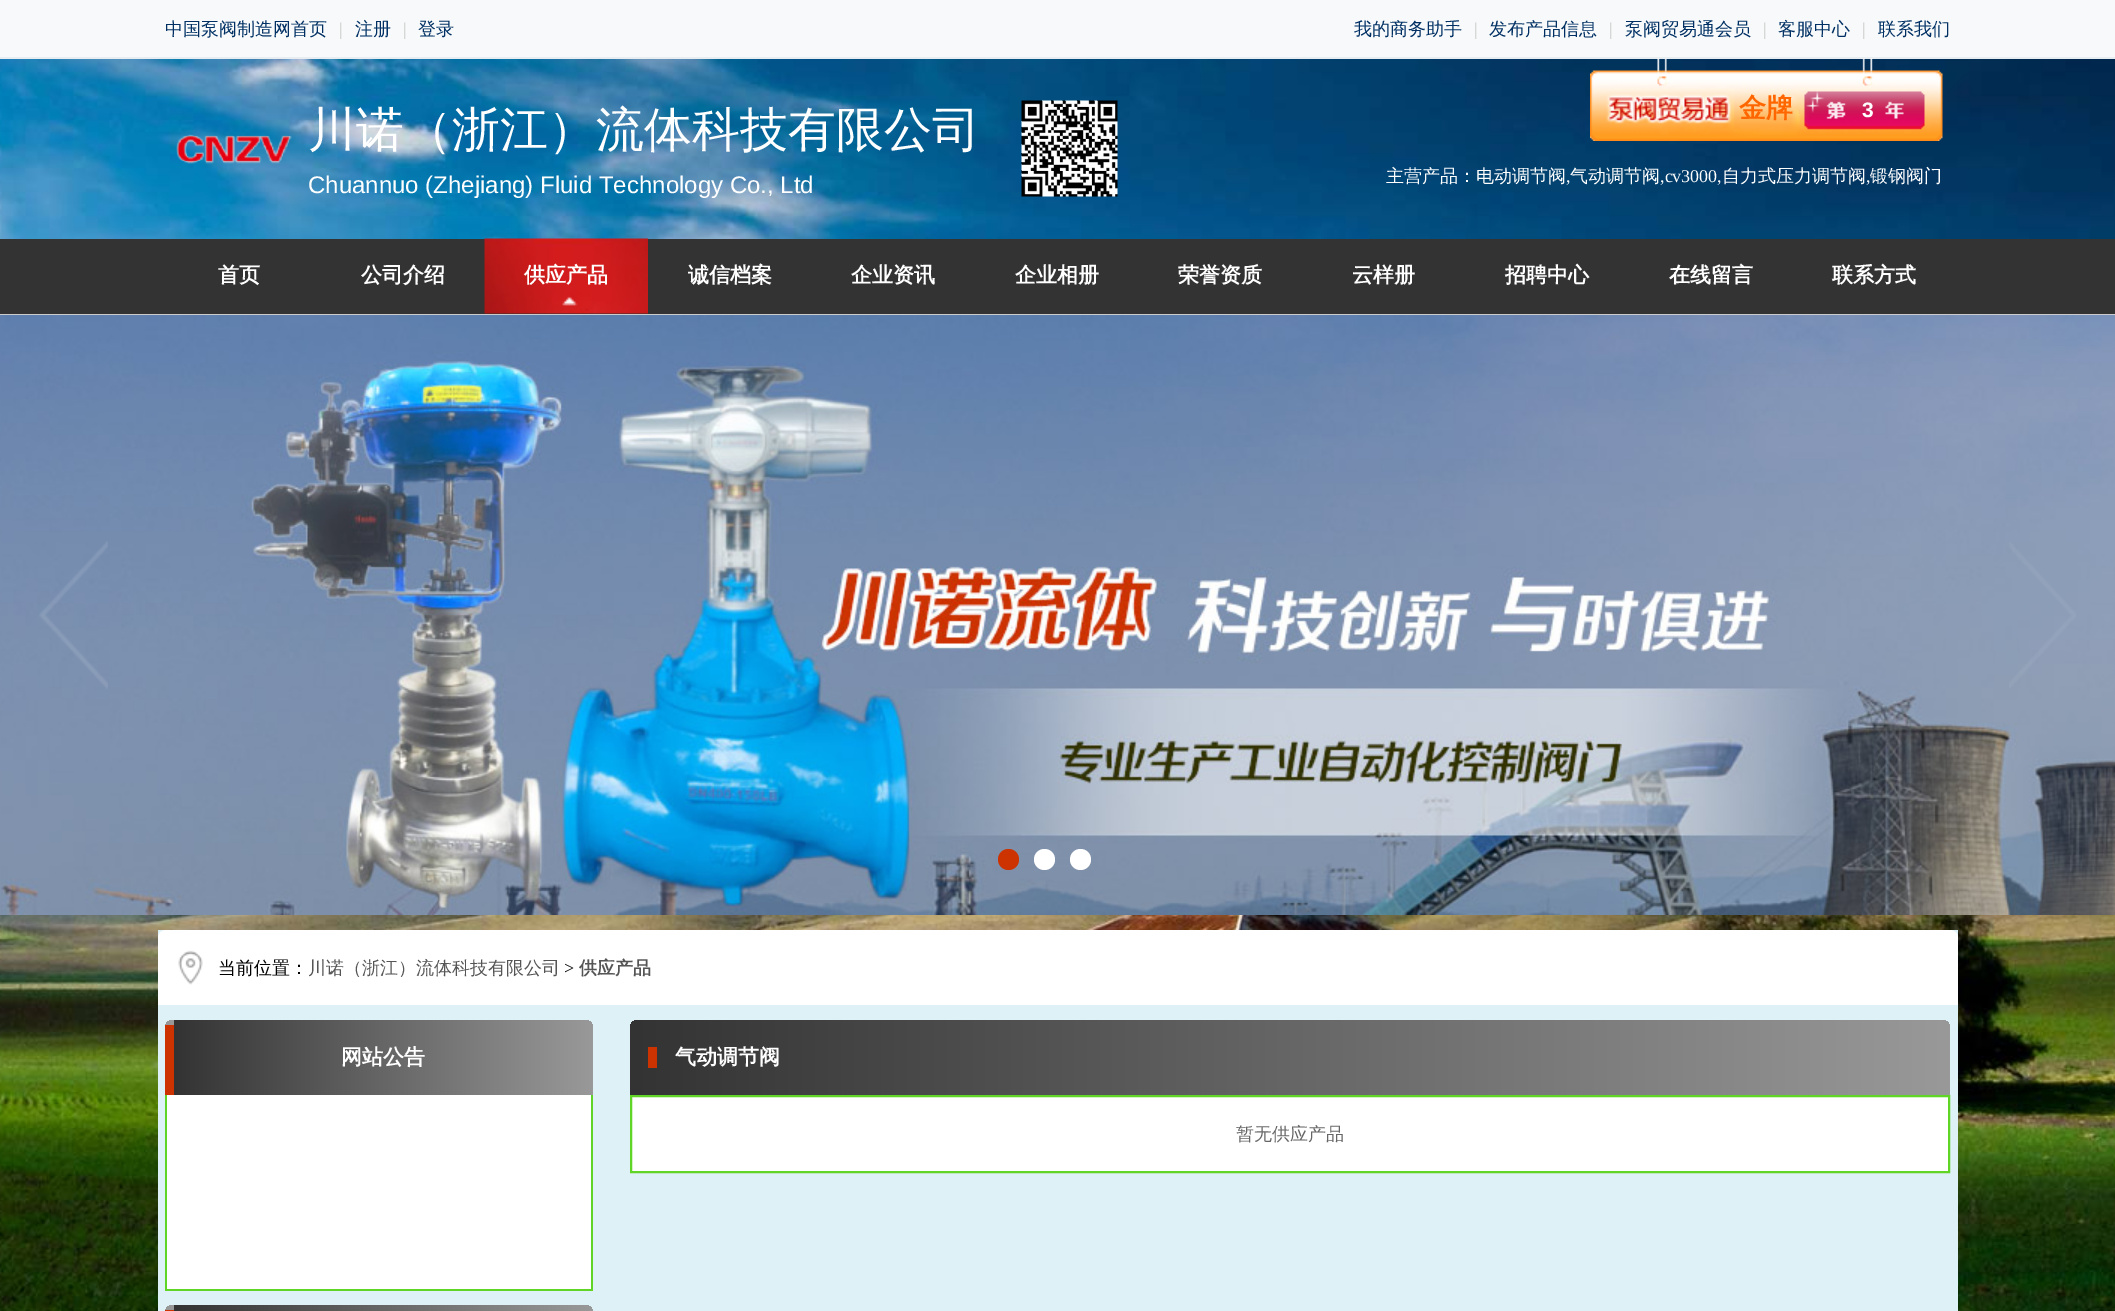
%!PS
<< /PageSize [2115 1311] >> setpagedevice
/m/moveto load def
/l/rlineto load def
/c/rcurveto load def
/z/closepath load def
/f/fill load def
/s/stroke load def
/q/gsave load def
/Q_/grestore load def
/w/setlinewidth load def
/C { dup -16 bitshift 255 div exch dup -8 bitshift 255 and 255 div exch 255 and 255 div setrgbcolor } def
/F { [ exch dup neg 0 0 3 -1 roll 0 0 ] selectfont } def
/T { moveto show } def
/R { rectfill } def
/O { newpath 0 360 arc closepath } def
/I { 5 dict begin { /h /w /y /x /name } { exch def } forall
  gsave x y translate w h scale
  w h 8 [w 0 0 h 0 0] name (r) file false 3 colorimage grestore end } def
0 1311 translate 1 -1 scale
4 setmiterlimit
16#FFFFFF C
0 0 2115 1311 R
(1.rgb) 0 59 2115 1252 I
16#F7F9FA C
0 0 2115 57 R
16#E8EDF2 C
0 57 2115 2 R
/WenQuanYiZenHei-Medium 18 F
16#003063 C
(中国泵阀制造网首页) 165 35 T
/LiberationSerif-Regular 18 F
16#CCCCCC C
(|) 339 35 T
/WenQuanYiZenHei-Medium 18 F
16#003063 C
(注册) 355 35 T
/LiberationSerif-Regular 18 F
16#CCCCCC C
(|) 403 35 T
/WenQuanYiZenHei-Medium 18 F
16#003063 C
(登录) 418 35 T
(我的商务助手) 1354 35 T
/LiberationSerif-Regular 18 F
16#CCCCCC C
(|) 1474 35 T
/WenQuanYiZenHei-Medium 18 F
16#003063 C
(发布产品信息) 1489 35 T
/LiberationSerif-Regular 18 F
16#CCCCCC C
(|) 1609 35 T
/WenQuanYiZenHei-Medium 18 F
16#003063 C
(泵阀贸易通会员) 1625 35 T
/LiberationSerif-Regular 18 F
16#CCCCCC C
(|) 1763 35 T
/WenQuanYiZenHei-Medium 18 F
16#003063 C
(客服中心) 1778 35 T
/LiberationSerif-Regular 18 F
16#CCCCCC C
(|) 1862 35 T
/WenQuanYiZenHei-Medium 18 F
16#003063 C
(联系我们) 1878 35 T
(2.rgb) 1021 100 97 97 I
(3.rgb) 1590 58 353 83 I
/WenQuanYiZenHei-Bold 27 F
16#FF6600 C
(金牌) 1739 117 T
/LiberationSans-Bold 21 F
16#FFFFFF C
(3) 1862 117 T
(4.rgb) 176 134 116 30 I
/WenQuanYiZenHei-Medium 48 F
(川诺（浙江）流体科技有限公司) 308 146 T
/LiberationSans-Regular 24 F
(Chuannuo \(Zhejiang\) Fluid Technology Co., Ltd) 308 193 T
/WenQuanYiZenHei-Medium 18 F
(主营产品：电动调节阀) 1386 182 T
/LiberationSerif-Regular 18 F
(,) 1566 182 T
/WenQuanYiZenHei-Medium 18 F
(气动调节阀) 1570 182 T
/LiberationSerif-Regular 18 F
(,cv3000,) 1660 182 T
/WenQuanYiZenHei-Medium 18 F
(自力式压力调节阀) 1722 182 T
/LiberationSerif-Regular 18 F
(,) 1866 182 T
/WenQuanYiZenHei-Medium 18 F
(锻钢阀门) 1870 182 T
16#333333 C
0 239 2115 75 R
16#CCCCCC C
0 314 2115 1 R
/WenQuanYiZenHei-Bold 21 F
16#FFFFFF C
(首页) 218 282 T
(公司介绍) 361 282 T
(5.rgb) 484 238 164 76 I
(供应产品) 524 282 T
(诚信档案) 688 282 T
(企业资讯) 851 282 T
(企业相册) 1015 282 T
(荣誉资质) 1178 282 T
(云样册) 1352 282 T
(招聘中心) 1505 282 T
(在线留言) 1669 282 T
(联系方式) 1832 282 T
(6.rgb) 0 315 2115 600 I
(7.rgb) 39 541 69 148 I
(8.rgb) 2009 542 67 146 I
16#CC3300 C
1008.5 859.5 10.5 O f
16#FFFFFF C
1044.5 859.5 10.5 O f
1080.5 859.5 10.5 O f
16#DEF1F7 C
158 930 1800 381 R
16#FFFFFF C
166 930 m 1784 0 l 4.5 0 8 3.5 8 8 c 0 67 l -1800 0 l 0 -67 l 0 -4.5 3.5 -8 8 -8 c z f
(9.rgb) 178 950 25 35 I
/WenQuanYiZenHei-Medium 18 F
16#000000 C
(当前位置：) 218 974 T
16#555555 C
(川诺（浙江）流体科技有限公司) 308 974 T
/LiberationSerif-Regular 18 F
16#000000 C
(>) 564 974 T
/WenQuanYiZenHei-Bold 18 F
16#555555 C
(供应产品) 579 974 T
q 173 1020 m 1 0 l 0 75 l -9 0 l 0 -67 l 0 -4.5 3.5 -8 8 -8 c z clip newpath
<< /ShadingType 2 /ColorSpace /DeviceRGB /Coords [-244 1058 174 1058] /Extend [true true] /Function << /FunctionType 2 /Domain [0 1] /C0 [.2 .2 .2] /C1 [.6 .6 .6] /N 1 >> >> shfill Q_
q 174 1020 m 411 0 l 4.5 0 8 3.5 8 8 c 0 67 l -419 0 l z clip newpath
<< /ShadingType 2 /ColorSpace /DeviceRGB /Coords [174 1058 593 1058] /Extend [true true] /Function << /FunctionType 2 /Domain [0 1] /C0 [.2 .2 .2] /C1 [.6 .6 .6] /N 1 >> >> shfill Q_
16#CC3300 C
165 1025 9 70 R
/WenQuanYiZenHei-Bold 21 F
16#FFFFFF C
(网站公告) 341 1064 T
167 1095 424 194 R
16#60D526 C
591 1095 2 195 R
165 1289 428 2 R
165 1095 2 195 R
q 173 1305 m 1 0 l 0 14 l -9 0 l 0 -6 l 0 -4.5 3.5 -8 8 -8 c z clip newpath
<< /ShadingType 2 /ColorSpace /DeviceRGB /Coords [-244 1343 174 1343] /Extend [true true] /Function << /FunctionType 2 /Domain [0 1] /C0 [.2 .2 .2] /C1 [.6 .6 .6] /N 1 >> >> shfill Q_
q 174 1305 m 411 0 l 4.5 0 8 3.5 8 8 c 0 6 l -419 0 l z clip newpath
<< /ShadingType 2 /ColorSpace /DeviceRGB /Coords [174 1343 593 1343] /Extend [true true] /Function << /FunctionType 2 /Domain [0 1] /C0 [.2 .2 .2] /C1 [.6 .6 .6] /N 1 >> >> shfill Q_
16#CC3300 C
165 1310 9 1 R
q 638 1020 m 1304 0 l 4.5 0 8 3.5 8 8 c 0 67 l -1320 0 l 0 -67 l 0 -4.5 3.5 -8 8 -8 c z clip newpath
<< /ShadingType 2 /ColorSpace /DeviceRGB /Coords [630 1058 1950 1058] /Extend [true true] /Function << /FunctionType 2 /Domain [0 1] /C0 [.2 .2 .2] /C1 [.6 .6 .6] /N 1 >> >> shfill Q_
648 1047 9 21 R
16#FFFFFF C
(气动调节阀) 675 1064 T
631 1096 m 1318 0 l 0 76 l -1318 0 l z q f Q_
16#60D526 C
2 w
s
/WenQuanYiZenHei-Medium 18 F
16#666666 C
(暂无供应产品) 1236 1140 T
showpage
